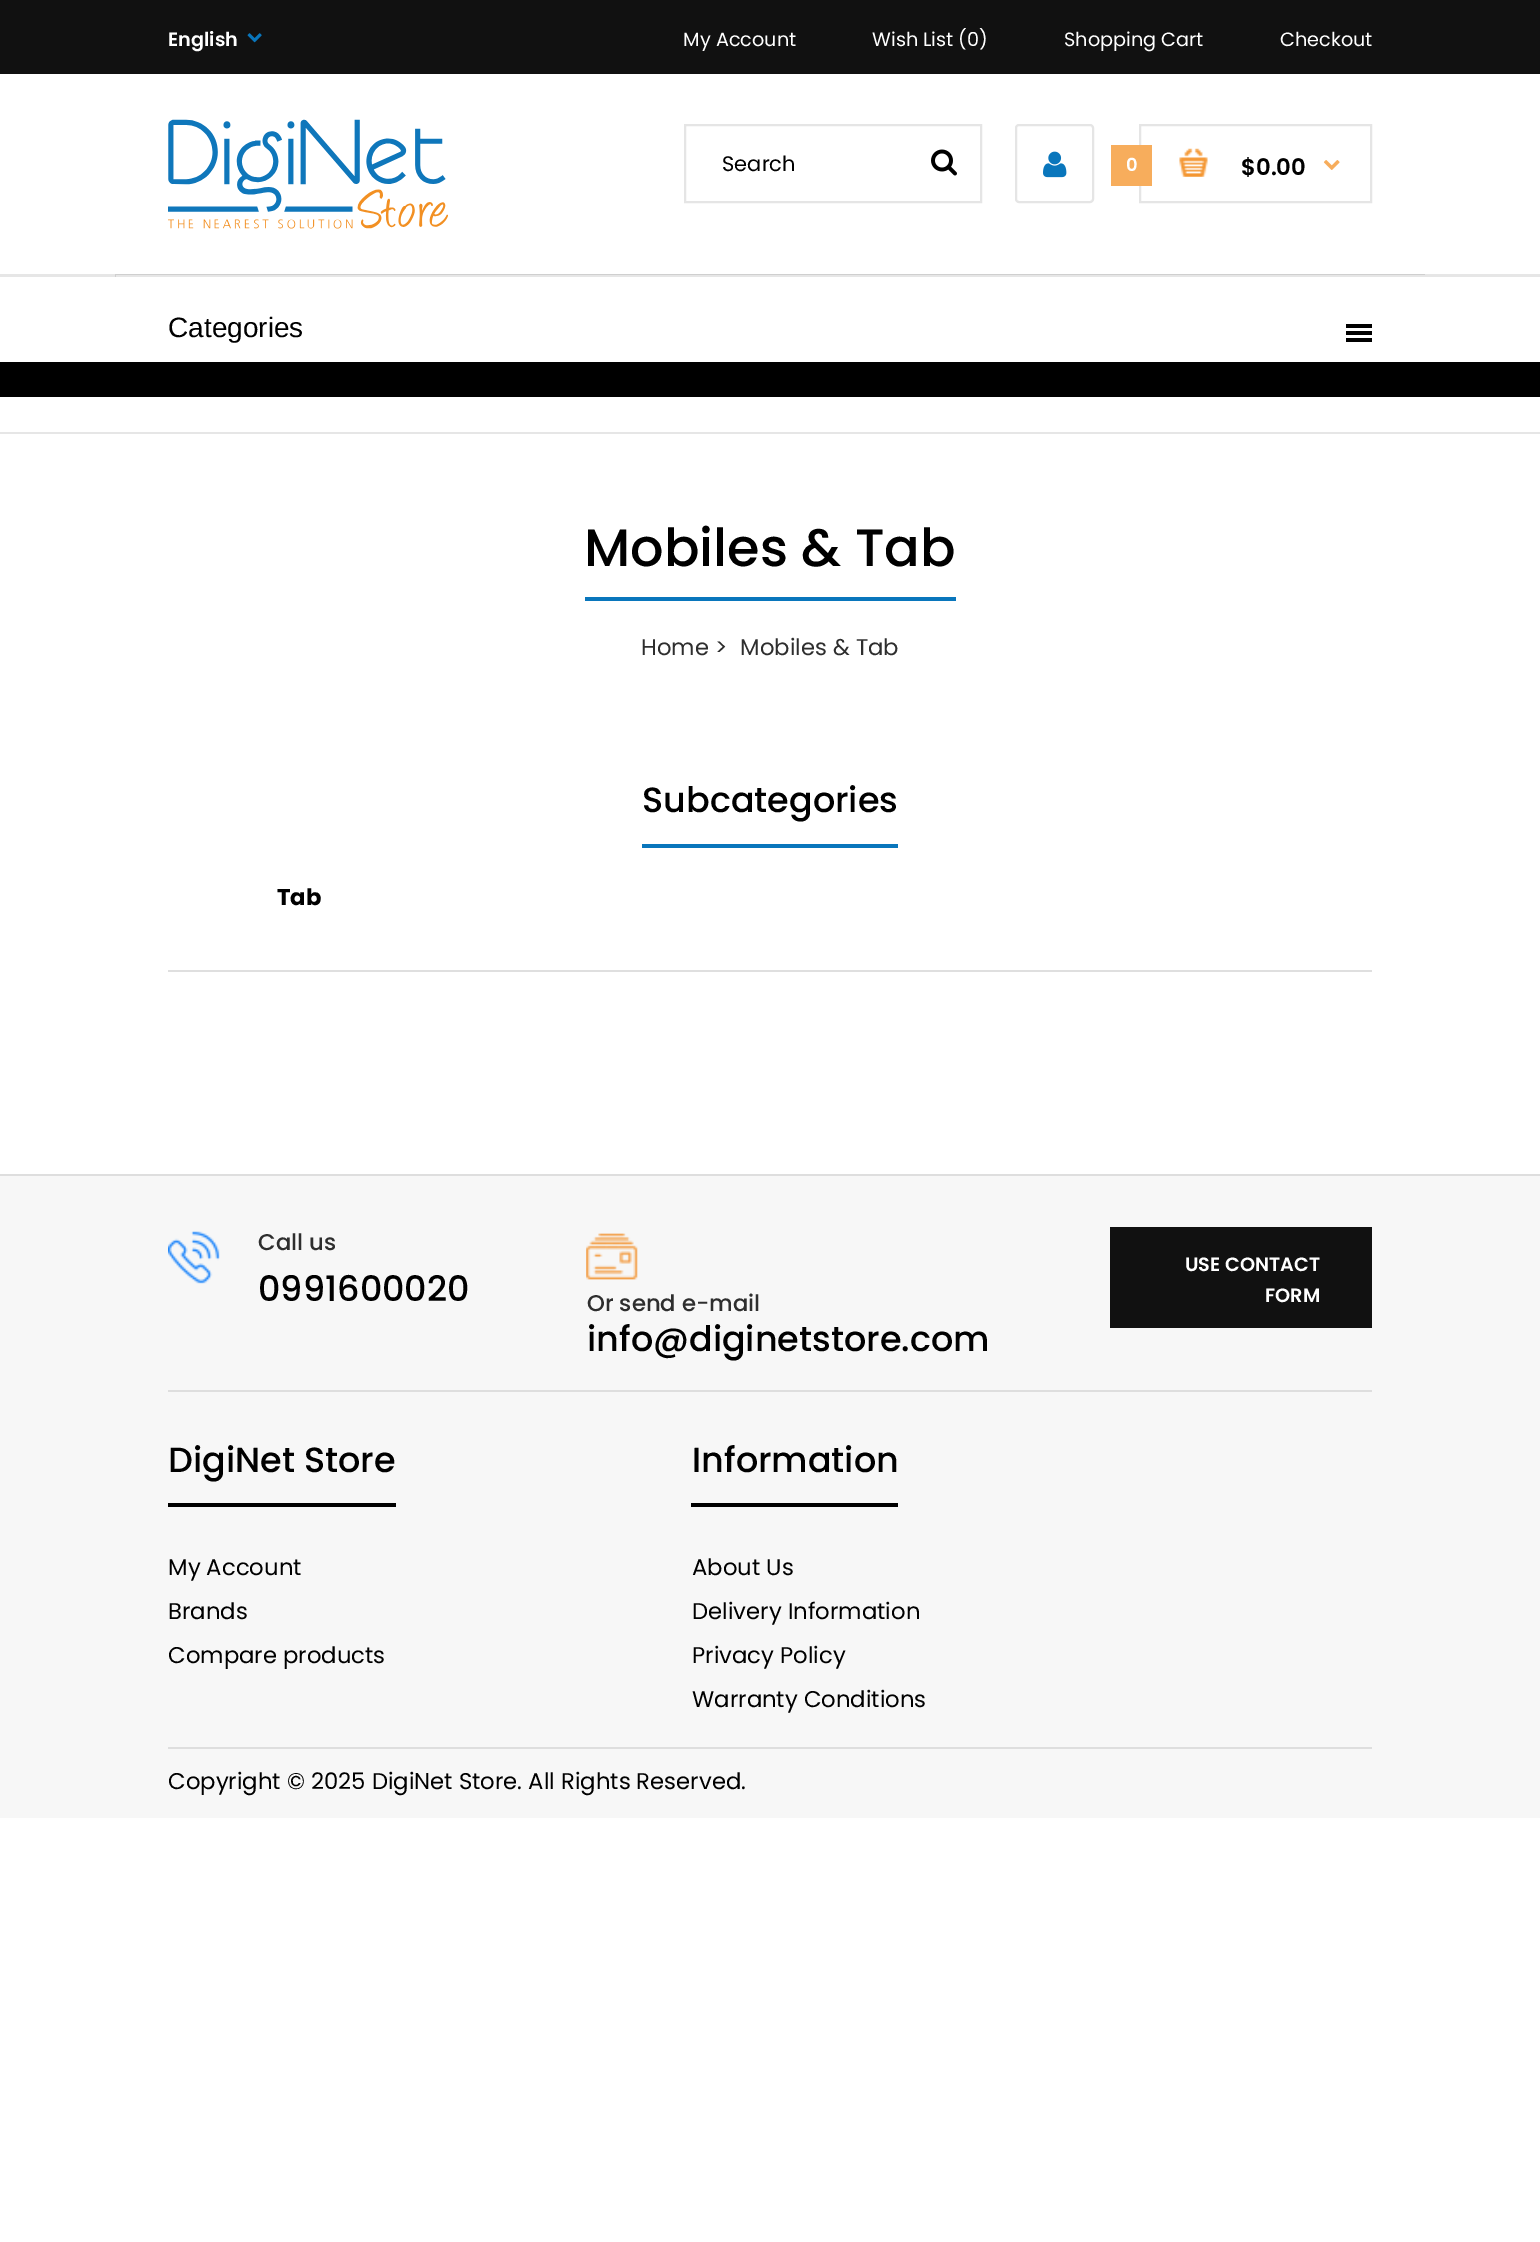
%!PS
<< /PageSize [1540 2242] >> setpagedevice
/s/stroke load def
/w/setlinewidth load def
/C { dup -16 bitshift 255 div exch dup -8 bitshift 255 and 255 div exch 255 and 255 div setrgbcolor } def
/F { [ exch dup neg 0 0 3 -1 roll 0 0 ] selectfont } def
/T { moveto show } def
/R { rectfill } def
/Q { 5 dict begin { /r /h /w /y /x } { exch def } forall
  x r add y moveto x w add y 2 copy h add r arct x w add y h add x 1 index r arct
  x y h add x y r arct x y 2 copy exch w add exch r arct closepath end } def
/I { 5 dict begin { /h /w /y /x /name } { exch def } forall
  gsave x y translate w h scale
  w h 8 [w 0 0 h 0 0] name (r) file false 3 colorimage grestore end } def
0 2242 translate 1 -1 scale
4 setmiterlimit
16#FFFFFF C
0 0 1540 2242 R
16#111111 C
0 0 1540 74 R
/Poppins-SemiBold 19.25 F
16#FFFFFF C
(English) 168 46 T
(1.rgb) 247 33 15 10 I
/Poppins-Regular 19.25 F
(My Account) 683 46 T
(Wish List \(0\)) 872 46 T
(Shopping Cart) 1064 46 T
(Checkout) 1280 46 T
(2.rgb) 168 119 280 110 I
16#E5E5E5 C
2 w
685 125 296 77 rectstroke
/Poppins-Regular 21 F
16#000000 C
(Search) 722 171 T
(3.rgb) 931 149 26 27 I
16#E5E5E5 C
1016 125 77 77 3 Q s
(4.rgb) 1043 151 24 27 I
1140 125 231 77 rectstroke
16#F7AD5C C
1111 145 41 41 R
/Poppins-SemiBold 18 F
16#FFFFFF C
(0) 1126 171 T
(5.rgb) 1179 148 29 29 I
/Poppins-SemiBold 22.75 F
16#000000 C
($0.00) 1241 175 T
(6.rgb) 1323 160 17 10 I
0 362 1540 35 R
16#E6E6E6 C
0 274 1540 3 R
16#CFCFCF C
115 274 1310 3 R
16#E6E6E6 C
116 275 1309 2 R
/LiberationSans-Regular 28 F
16#000000 C
(Categories) 168 337 T
1346 324 26 4 R
1346 331 26 4 R
1346 338 26 4 R
16#E6E6E6 C
0 432 1540 2 R
16#0976BC C
585 597 371 4 R
/Poppins-Medium 52.5 F
16#000000 C
(Mobiles & Tab) 584 566 T
/Poppins-Regular 22.75 F
16#2E2E2E C
(Home >) 641 655 T
(Mobiles & Tab) 740 655 T
16#0976BC C
642 844 256 4 R
/Poppins-Medium 35 F
16#000000 C
(Subcategories) 642 812 T
16#DFDFDF C
168 970 1204 2 R
/Poppins-Bold 22.75 F
16#000000 C
(Tab) 277 905 T
16#F7F7F7 C
0 1176 1540 642 R
16#DEDEDE C
0 1174 1540 2 R
(7.rgb) 168 1231 52 53 I
/Poppins-Medium 22.75 F
16#2E2E2E C
(Call us) 258 1250 T
/Poppins-Medium 35 F
16#000000 C
(0991600020) 258 1301 T
16#111111 C
1110 1227 262 101 R
/Poppins-SemiBold 19.25 F
16#FFFFFF C
(USE CONTACT) 1185 1271 T
(FORM) 1265 1302 T
(8.rgb) 586 1233 52 47 I
/Poppins-Medium 22.75 F
16#2E2E2E C
(Or send e-mail) 587 1311 T
/Poppins-Medium 35 F
16#000000 C
(info@diginetstore.com) 587 1351 T
16#DEDEDE C
168 1390 1204 2 R
16#000000 C
168 1503 228 4 R
(DigiNet Store) 168 1472 T
/Poppins-Regular 22.75 F
(My Account) 168 1575 T
(Brands) 168 1619 T
(Compare products) 168 1663 T
691 1503 207 4 R
/Poppins-Medium 35 F
(Information) 692 1472 T
/Poppins-Regular 22.75 F
(About Us) 692 1575 T
(Delivery Information) 692 1619 T
(Privacy Policy) 692 1663 T
(Warranty Conditions) 692 1707 T
16#DEDEDE C
168 1747 1204 2 R
16#000000 C
(Copyright © 2025 DigiNet Store. All Rights Reserved.) 168 1789 T
showpage
